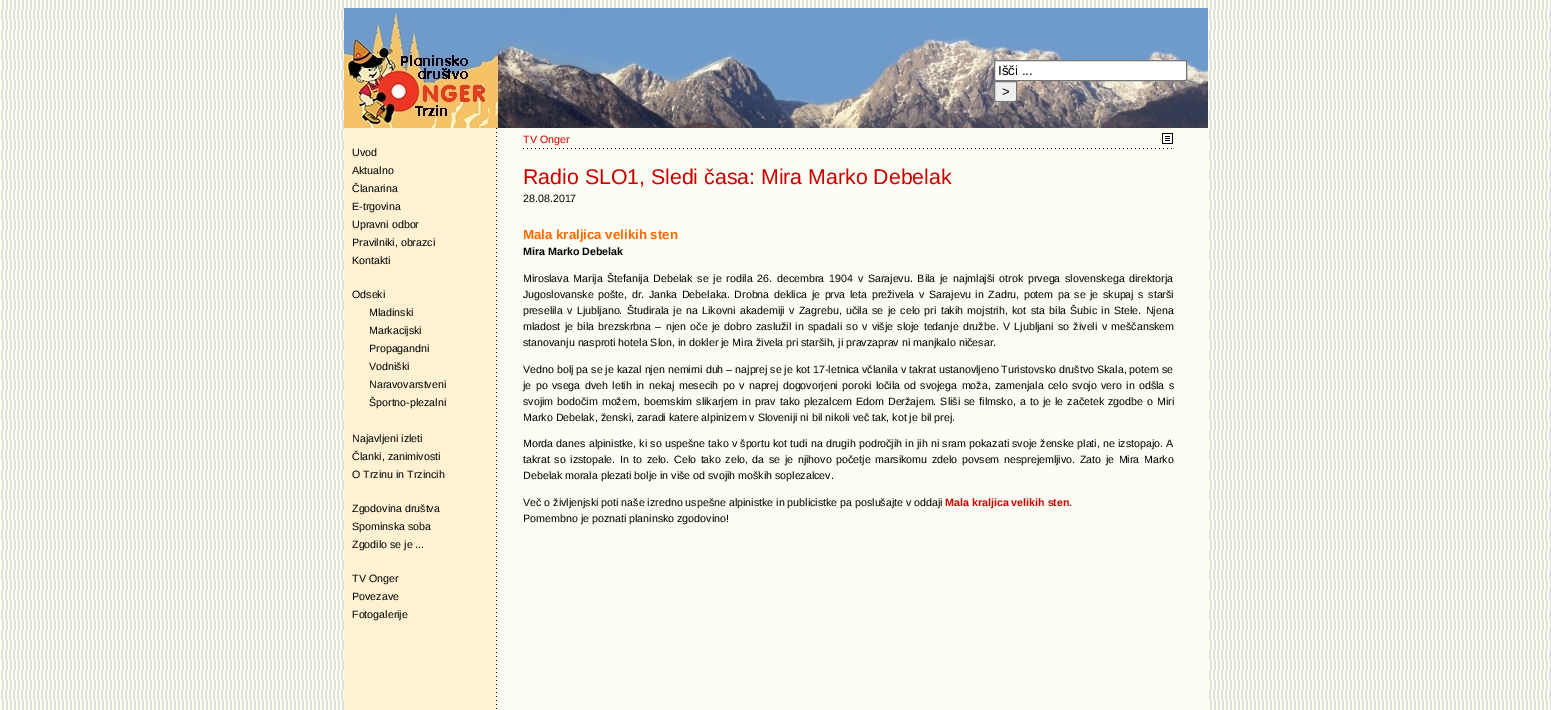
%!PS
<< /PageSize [1551 710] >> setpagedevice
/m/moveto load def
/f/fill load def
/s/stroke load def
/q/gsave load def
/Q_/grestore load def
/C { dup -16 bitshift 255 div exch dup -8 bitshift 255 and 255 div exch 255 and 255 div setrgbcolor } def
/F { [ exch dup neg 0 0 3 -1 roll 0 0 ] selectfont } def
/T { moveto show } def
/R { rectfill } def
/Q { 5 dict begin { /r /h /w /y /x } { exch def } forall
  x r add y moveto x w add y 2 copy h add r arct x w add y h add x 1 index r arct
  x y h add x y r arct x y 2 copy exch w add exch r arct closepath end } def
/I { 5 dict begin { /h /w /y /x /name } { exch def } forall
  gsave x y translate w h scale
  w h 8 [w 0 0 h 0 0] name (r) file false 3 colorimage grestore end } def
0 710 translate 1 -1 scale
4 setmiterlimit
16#FFFFF0 C
0 0 1551 710 R
(1.rgb) 1 0 1550 710 I
16#FFFFFF C
496 129 1 581 R
(2.rgb) 344 8 864 120 I
994.5 60.5 192 20 1.5 Q q f Q_
16#767676 C
s
/LiberationSans-Regular 13.25 F
16#000000 C
(Išči ...) 998 75 T
16#EFEFEF C
994.5 81.5 22 20 1.5 Q q f Q_
16#767676 C
s
16#000000 C
(>) 1002 96 T
(3.rgb) 496 128 1 581 I
16#FDFCF2 C
497 128 711 582 R
16#FFF1D1 C
344 128 152 582 R
/LiberationSans-Regular 10.67 F
16#000000 C
(Uvod) 352 156 T
(Aktualno) 352 174 T
(Članarina) 352 192 T
(E-trgovina) 352 210 T
(Upravni odbor) 352 228 T
(Pravilniki, obrazci) 352 246 T
(Kontakti) 352 264 T
(Odseki) 352 298 T
(Mladinski) 369 316 T
(Markacijski) 369 334 T
(Propagandni) 369 352 T
(Vodniški) 369 370 T
(Naravovarstveni) 369 388 T
(Športno-plezalni) 369 406 T
(Najavljeni izleti) 352 442 T
(Članki, zanimivosti) 352 460 T
(O Trzinu in Trzincih) 352 478 T
(Zgodovina društva) 352 512 T
(Spominska soba) 352 530 T
(Zgodilo se je ...) 352 548 T
(TV Onger) 352 582 T
(Povezave) 352 600 T
(Fotogalerije) 352 618 T
16#CC0000 C
(TV Onger) 523 143 T
(4.rgb) 1162 133 11 11 I
(5.rgb) 523 148 649 1 I
/LiberationSans-Regular 21.3 F
(Radio SLO1, Sledi časa: Mira Marko Debelak) 523 184 T
/LiberationSans-Regular 10.67 F
16#000000 C
(28.08.2017) 523 202 T
/LiberationSans-Bold 13.25 F
16#FF6600 C
(Mala kraljica velikih sten) 523 239 T
/LiberationSans-Bold 10.67 F
16#000000 C
(Mira Marko Debelak) 523 255 T
/LiberationSans-Regular 10.67 F
523 282 m 1.8 0 32 (Miroslava Marija Štefanija Debelak se je rodila 26. decembra 1904 v Sarajevu. Bila je najmlajši otrok prvega slovenskega direktorja) widthshow
523 298 m 1.6 0 32 (Jugoslovanske pošte, dr. Janka Debelaka. Drobna deklica je prva leta preživela v Sarajevu in Zadru, potem pa se je skupaj s starši) widthshow
523 314 m 1.4 0 32 (preselila v Ljubljano. Študirala je na Likovni akademiji v Zagrebu, učila se je celo pri takih mojstrih, kot sta bila Šubic in Stele. Njena) widthshow
523 330 m 1.4 0 32 (mladost je bila brezskrbna – njen oče je dobro zaslužil in spadali so v višje sloje tedanje družbe. V Ljubljani so živeli v meščanskem) widthshow
(stanovanju nasproti hotela Slon, in dokler je Mira živela pri starših, ji pravzaprav ni manjkalo ničesar.) 523 346 T
(Vedno bolj pa se je kazal njen nemirni duh – najprej se je kot 17-letnica včlanila v takrat ustanovljeno Turistovsko društvo Skala, potem se) 523 373 T
523 389 m 1.4 0 32 (je po vsega dveh letih in nekaj mesecih po v naprej dogovorjeni poroki ločila od svojega moža, zamenjala celo svojo vero in odšla s) widthshow
523 405 m 1.1 0 32 (svojim bodočim možem, boemskim slikarjem in prav tako plezalcem Edom Deržajem. Sliši se filmsko, a to je le začetek zgodbe o Miri) widthshow
(Marko Debelak, ženski, zaradi katere alpinizem v Sloveniji ni bil nikoli več tak, kot je bil prej.) 523 421 T
523 447 m .25 0 32 (Morda danes alpinistke, ki so uspešne tako v športu kot tudi na drugih področjih in jih ni sram pokazati svoje ženske plati, ne izstopajo. A) widthshow
523 463 m 1.65 0 32 (takrat so izstopale. In to zelo. Celo tako zelo, da se je njihovo početje marsikomu zdelo povsem nesprejemljivo. Zato je Mira Marko) widthshow
(Debelak morala plezati bolje in više od svojih moških soplezalcev.) 523 479 T
(Več o življenjski poti naše izredno uspešne alpinistke in publicistke pa poslušajte v oddaji) 523 506 T
/LiberationSans-Bold 10.67 F
16#CC0000 C
(Mala kraljica velikih sten) 945 506 T
/LiberationSans-Regular 10.67 F
16#000000 C
(.) 1069 506 T
(Pomembno je poznati planinsko zgodovino!) 523 522 T
showpage
